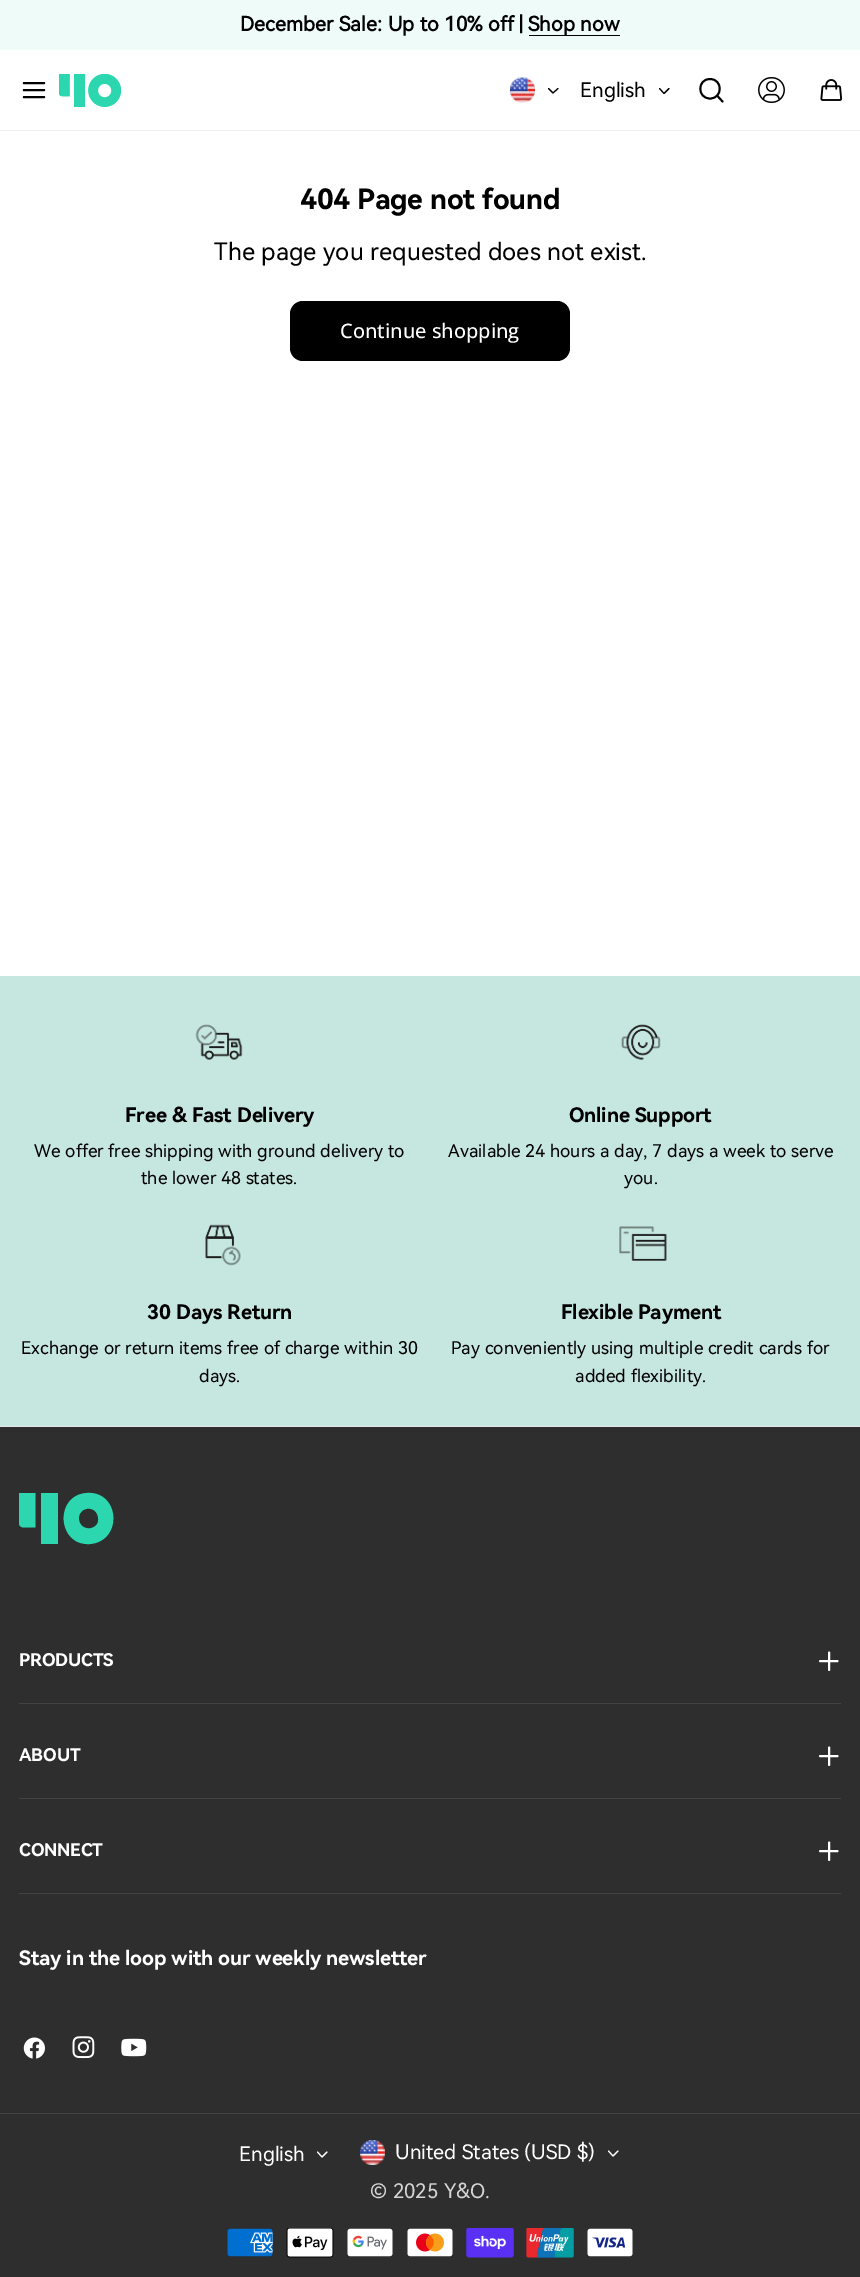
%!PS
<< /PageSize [860 2277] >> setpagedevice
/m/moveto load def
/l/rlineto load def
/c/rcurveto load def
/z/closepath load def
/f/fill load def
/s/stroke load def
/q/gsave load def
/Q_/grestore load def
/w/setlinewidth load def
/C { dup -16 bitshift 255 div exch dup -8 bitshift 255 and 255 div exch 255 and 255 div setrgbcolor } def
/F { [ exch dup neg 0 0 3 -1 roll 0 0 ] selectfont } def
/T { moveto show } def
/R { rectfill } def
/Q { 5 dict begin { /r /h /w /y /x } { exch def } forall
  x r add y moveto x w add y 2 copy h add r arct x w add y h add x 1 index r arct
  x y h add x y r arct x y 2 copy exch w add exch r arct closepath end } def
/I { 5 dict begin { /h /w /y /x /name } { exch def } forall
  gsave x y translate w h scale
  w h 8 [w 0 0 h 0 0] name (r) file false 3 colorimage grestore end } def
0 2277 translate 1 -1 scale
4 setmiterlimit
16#FFFFFF C
0 0 860 2277 R
16#EEFBF8 C
0 0 860 50 R
/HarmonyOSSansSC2-Bold 20 F
16#000000 C
(December Sale: Up to 10% off |) 240 31 T
529 35 91 1 R
(Shop now) 528 31 T
16#EDEDED C
0 130 860 1 R
16#000000 C
2.1 w
1 setlinecap
1 setlinejoin
24 90 m 20 0 l 24 83 m 20 0 l 24 97 m 20 0 l s
(1.rgb) 59 74 62 33 I
(2.rgb) 510 77 25 26 I
1.1 w
558 88.5 m -5 4.5 l -4.5 -4.5 l s
/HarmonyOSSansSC-Regular 20 F
(English) 580 97 T
669 88.5 m -5 5 l -4.5 -5 l s
1.9 w
710 98.5 m 13 0 13 -19.5 0 -19.5 c -13 0 -13 19.5 0 19.5 c z 717 95.5 m 5.5 6 l s
(3.rgb) 758 77 27 26 I
(4.rgb) 820 79 23 22 I
/HarmonyOSSansSC-Bold 28 F
300 209 m -.25 0 (404 Page not found) ashow
/HarmonyOSSansSC-Regular 24 F
(The page you requested does not exist.) 214 260 T
290 301 280 60 13 Q f
/OpenSans-Medium 20 F
16#FFFFFF C
(Continue shopping) 340 338 T
16#C6E7DF C
0 976 860 450 R
(5.rgb) 195 1024 48 36 I
/HarmonyOSSansSC-Bold 20 F
16#000000 C
125 1122 m -.2 0 (Free & Fast Delivery) ashow
/HarmonyOSSansSC-Regular 17.5 F
(We offer free shipping with ground delivery to) 34 1157 T
(the lower 48 states.) 141 1184 T
(6.rgb) 621 1024 40 36 I
/HarmonyOSSansSC-Bold 20 F
569 1122 m -.2 0 (Online Support) ashow
/HarmonyOSSansSC-Regular 17.5 F
(Available 24 hours a day, 7 days a week to serve) 448 1157 T
(you.) 624 1184 T
(7.rgb) 205 1224 36 42 I
/HarmonyOSSansSC-Bold 20 F
147 1319 m -.2 0 (30 Days Return) ashow
/HarmonyOSSansSC-Regular 17.5 F
(Exchange or return items free of charge within 30) 21 1354 T
(days.) 199 1382 T
(8.rgb) 619 1226 48 35 I
/HarmonyOSSansSC-Bold 20 F
561 1319 m -.2 0 (Flexible Payment) ashow
/HarmonyOSSansSC-Regular 17.5 F
(Pay conveniently using multiple credit cards for) 451 1354 T
(added flexibility.) 575 1382 T
16#2E2E2E C
0 1427 860 850 R
16#E6E6E6 C
0 1426 860 1 R
q
19 1493 95 51 rectclip
16#2CD6AF C
19 1493 m 16.5 0 l 0 34.5 l -12 0 l -5.5 -.5 -5 -5.5 -4.5 -10 c z f
Q_
16#2CD6AF C
41 1493 17 51 R
87 1493 m 33 -2 36 48 3 51 c -33 2 -36 -49 -3 -51 c z 98 1517 m -2 -13 -21 -10 -19 3 c 2 13 22 10 19 -3 c z f
/HarmonyOSSansSC-Bold 17.5 F
16#FFFFFF C
19 1666 m -.25 0 (PRODUCTS) ashow
820 1661 m 17.5 0 l 829 1652.5 m 0 17.5 l s
16#434343 C
19 1703 822 1 R
16#FFFFFF C
19 1761 m -.25 0 (ABOUT) ashow
820 1756 m 17.5 0 l 829 1747.5 m 0 17.5 l s
16#434343 C
19 1798 822 1 R
16#FFFFFF C
19 1856 m -.25 0 (CONNECT) ashow
820 1851 m 17.5 0 l 829 1842.5 m 0 17.5 l s
16#434343 C
19 1893 822 1 R
/HarmonyOSSansSC-Bold 20 F
16#FFFFFF C
19 1965 m -.2 0 (Stay in the loop with our weekly newsletter) ashow
(9.rgb) 23 2037 22 22 I
(10.rgb) 72 2036 23 23 I
(11.rgb) 121 2038 26 19 I
16#434343 C
0 2113 860 1 R
/HarmonyOSSansSC-Regular 20 F
16#FFFFFF C
(English) 239 2161 T
1.1 w
327 2152 m -5 5 l -4.5 -5 l s
(12.rgb) 360 2140 25 25 I
(United States \(USD $\)) 395 2159 T
618 2151 m -5 5 l -4.5 -5 l s
16#D5D5D5 C
(© 2025 Y&O.) 370 2198 T
(13.rgb) 227 2228 46 29 I
(14.rgb) 286 2228 48 30 I
(15.rgb) 347 2228 46 29 I
(16.rgb) 407 2228 46 29 I
(17.rgb) 466 2228 48 30 I
(18.rgb) 526 2228 48 30 I
(19.rgb) 587 2228 46 29 I
showpage
